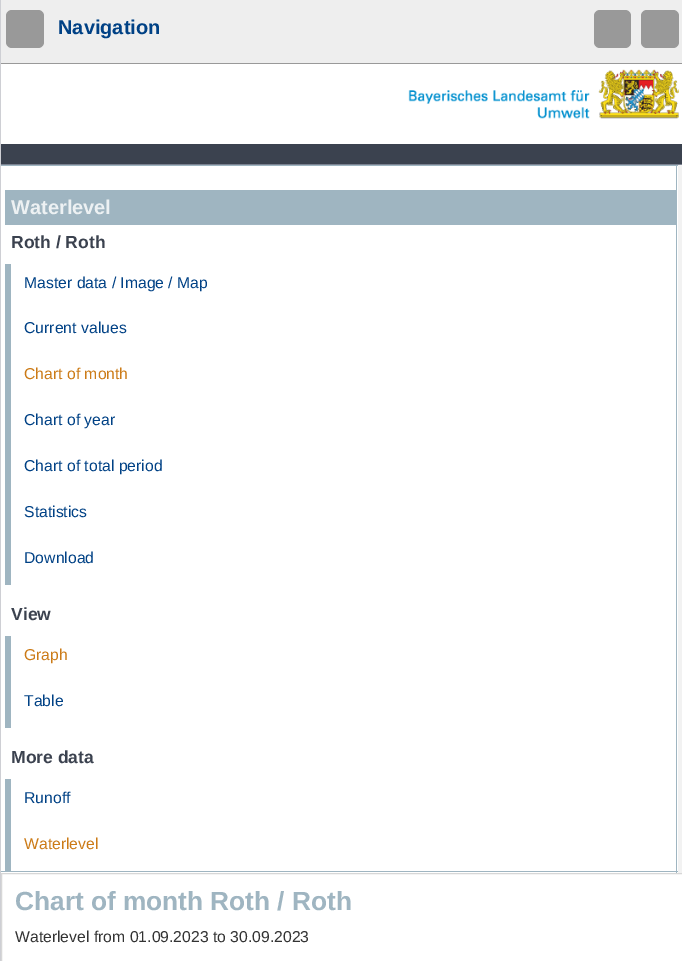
%!PS
<< /PageSize [682 961] >> setpagedevice
/f/fill load def
/C { dup -16 bitshift 255 div exch dup -8 bitshift 255 and 255 div exch 255 and 255 div setrgbcolor } def
/F { [ exch dup neg 0 0 3 -1 roll 0 0 ] selectfont } def
/T { moveto show } def
/R { rectfill } def
/Q { 5 dict begin { /r /h /w /y /x } { exch def } forall
  x r add y moveto x w add y 2 copy h add r arct x w add y h add x 1 index r arct
  x y h add x y r arct x y 2 copy exch w add exch r arct closepath end } def
/I { 5 dict begin { /h /w /y /x /name } { exch def } forall
  gsave x y translate w h scale
  w h 8 [w 0 0 h 0 0] name (r) file false 3 colorimage grestore end } def
0 961 translate 1 -1 scale
4 setmiterlimit
16#FFFFFF C
0 0 682 961 R
16#CECFD4 C
0 0 1 961 R
16#EEEEEE C
1 0 681 63 R
16#999999 C
1 63 681 1 R
6 10 38 38 6 Q f
/LiberationSans-Bold 20 F
16#004185 C
(Navigation) 58 34 T
16#999999 C
594 10 37 38 6 Q f
641 10 38 38 6 Q f
(1.rgb) 408 69 271 50 I
16#3B424F C
1 144 681 20 R
16#7A8291 C
1 164 681 1 R
16#F2F2F2 C
678 165 4 708 R
16#9FB5C1 C
1 165 677 1 R
676 165 1 708 R
1 871 677 1 R
5 190 671 35 R
16#EDF1F3 C
(Waterlevel) 11 214 T
/LiberationSans-Bold 17.5 F
16#3B424F C
(Roth / Roth) 11 248 T
16#9FB5C1 C
5 264 6 321 R
/LiberationSans-Regular 15.75 F
16#004185 C
(Master data / Image / Map) 24 288 T
(Current values) 24 333 T
16#CC7B17 C
(Chart of month) 24 379 T
16#004185 C
(Chart of year) 24 425 T
(Chart of total period) 24 471 T
(Statistics) 24 517 T
(Download) 24 563 T
/LiberationSans-Bold 17.5 F
16#3B424F C
(View) 11 620 T
16#9FB5C1 C
5 636 6 92 R
/LiberationSans-Regular 15.75 F
16#CC7B17 C
(Graph) 24 660 T
16#004185 C
(Table) 24 706 T
/LiberationSans-Bold 17.5 F
16#3B424F C
(More data) 11 763 T
16#9FB5C1 C
5 779 6 92 R
/LiberationSans-Regular 15.75 F
16#004185 C
(Runoff) 24 803 T
16#CC7B17 C
(Waterlevel) 24 849 T
16#D7D7D7 C
1.5 873.5 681 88 rectstroke
/LiberationSans-Bold 26.25 F
16#9FB5C1 C
(Chart of month Roth / Roth) 15 910 T
/LiberationSans-Regular 15.75 F
16#333333 C
(Waterlevel from 01.09.2023 to 30.09.2023) 15 942 T
showpage
